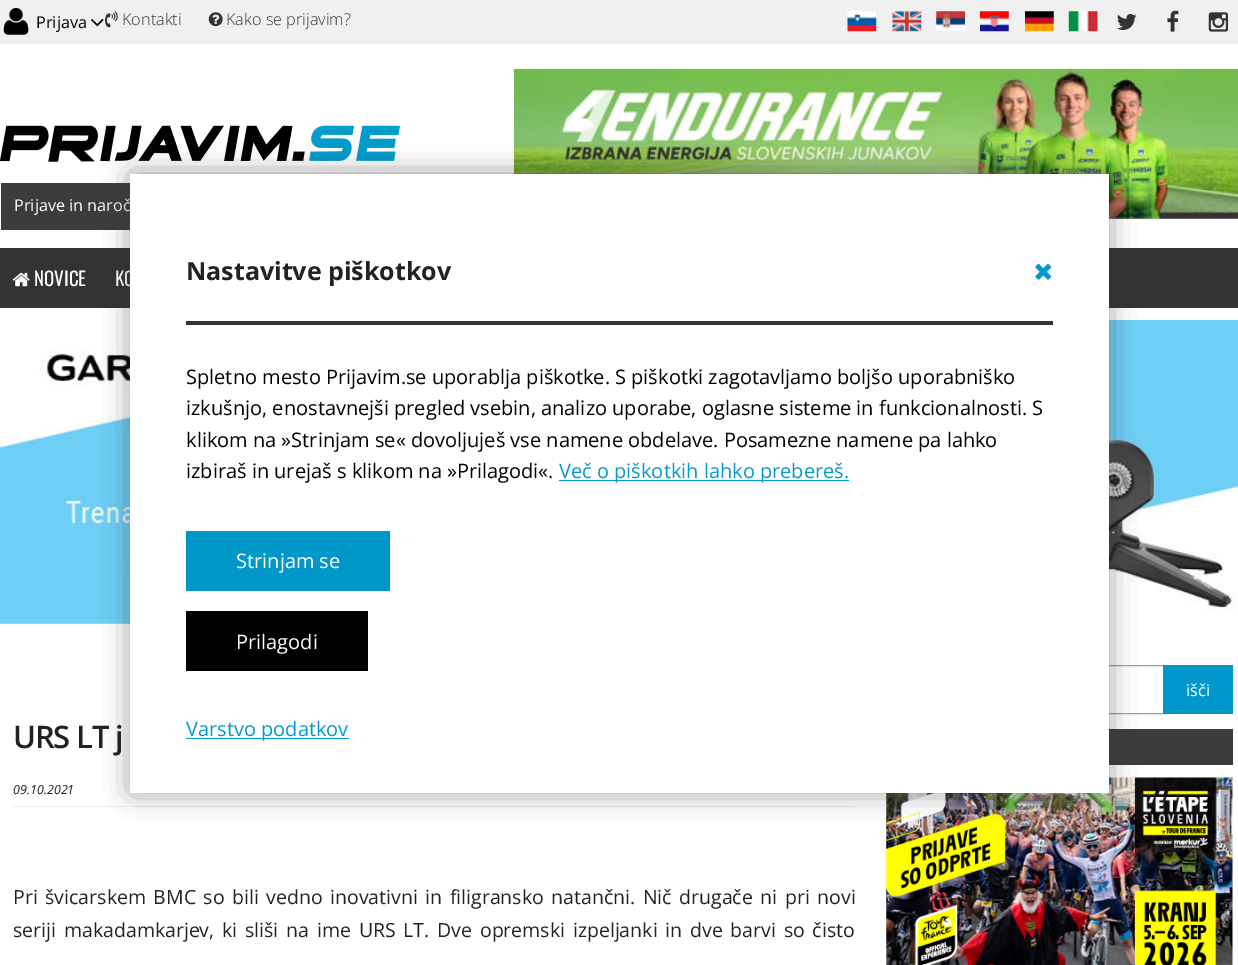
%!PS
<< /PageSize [1238 965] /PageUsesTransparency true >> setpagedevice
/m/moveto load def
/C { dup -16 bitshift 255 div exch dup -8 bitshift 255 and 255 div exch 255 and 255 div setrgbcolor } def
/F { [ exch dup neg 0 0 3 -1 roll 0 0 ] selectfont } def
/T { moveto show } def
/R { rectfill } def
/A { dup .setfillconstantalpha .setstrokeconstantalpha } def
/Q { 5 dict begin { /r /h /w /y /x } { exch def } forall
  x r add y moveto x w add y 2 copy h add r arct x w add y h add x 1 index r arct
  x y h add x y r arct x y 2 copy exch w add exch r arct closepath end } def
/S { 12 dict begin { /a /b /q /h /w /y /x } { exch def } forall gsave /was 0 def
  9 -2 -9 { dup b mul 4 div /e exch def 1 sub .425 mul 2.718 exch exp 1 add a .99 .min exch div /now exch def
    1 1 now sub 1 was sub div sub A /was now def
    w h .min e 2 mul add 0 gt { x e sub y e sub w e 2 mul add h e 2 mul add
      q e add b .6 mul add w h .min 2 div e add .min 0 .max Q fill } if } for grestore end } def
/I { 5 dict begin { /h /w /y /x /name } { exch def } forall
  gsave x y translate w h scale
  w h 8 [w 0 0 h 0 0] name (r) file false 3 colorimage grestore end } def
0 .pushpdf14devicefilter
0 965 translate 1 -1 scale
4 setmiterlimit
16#FFFFFF C
0 0 1238 965 R
16#F0F0F0 C
0 0 1238 44 R
(1.rgb) 3 8 26 27 I
/OpenSans-Regular 16.25 F
16#000000 C
(Prijava) 36 28 T
(2.rgb) 91 19 13 8 I
(3.rgb) 105 11 13 17 I
/OpenSans-Light 16.25 F
16#333333 C
(Kontakti) 122 25 T
(4.rgb) 208 12 15 15 I
(Kako se prijavim?) 226 25 T
(5.rgb) 847 11 30 21 I
(6.rgb) 892 11 30 21 I
(7.rgb) 936 11 29 20 I
(8.rgb) 980 11 29 21 I
(9.rgb) 1025 11 29 21 I
(10.rgb) 1068 11 30 21 I
(11.rgb) 1117 13 20 17 I
(12.rgb) 1167 10 12 22 I
(13.rgb) 1208 12 21 20 I
(14.rgb) 0 125 400 37 I
(15.rgb) 513 68 725 151 I
16#3C3C3C C
1 183 129 47 R
/OpenSans-Regular 16.25 F
16#FFFFFF C
(Prijave in naroč) 14 211 T
16#333333 C
0 248 1238 60 R
(16.rgb) 12 272 18 15 I
/Oswald-Regular 19 F
16#FFFFFF C
(NOVICE) 34 286 T
(KO) 115 286 T
(18.rgb) 0 320 1238 304 I
16#9D9D9D C
886.5 665.5 279 48 rectstroke
16#3C3C3C C
1109 729 124 36 R
(19.rgb) 886 777 347 188 I
16#EEEEEE C
13 806 842 1 R
16#333333 C
133 176 973 614 0 14 .62 S
16#FFFFFF C
130 174 979 619 R
16#333333 C
186 321 867 4 R
/OpenSans-Bold 25 F
16#222222 C
(Nastavitve piškotkov) 186 280 T
(17.rgb) 1035 264 17 16 I
/OpenSans-Regular 20 F
16#000000 C
(Spletno mesto Prijavim.se uporablja piškotke. S piškotki zagotavljamo boljšo uporabniško) 186 384 T
(izkušnjo, enostavnejši pregled vsebin, analizo uporabe, oglasne sisteme in funkcionalnosti. S) 186 415 T
(klikom na »Strinjam se« dovoljuješ vse namene obdelave. Posamezne namene pa lahko) 186 447 T
(izbiraš in urejaš s klikom na »Prilagodi«.) 186 478 T
16#0399CC C
559 480 290 1 R
(Več o piškotkih lahko prebereš.) 559 478 T
16#0098C8 C
186 531 204 60 R
16#FFFFFF C
(Strinjam se) 236 568 T
16#010101 C
186 611 182 60 R
16#FFFFFF C
(Prilagodi) 236 649 T
16#0399CC C
186 738 163 1 R
(Varstvo podatkov) 186 736 T
16#0197CC C
1163 665 70 49 R
/OpenSans-Regular 16.25 F
16#FFFFFF C
(išči) 1186 696 T
/OpenSans-SemiBold 31 F
16#222222 C
13 748 m -1.25 0 (URS LT j) ashow
/OpenSans-Italic 12.5 F
(09.10.2021) 13 794 T
/OpenSans-Regular 19.5 F
13 904 m 2.5 0 32 (Pri švicarskem BMC so bili vedno inovativni in filigransko natančni. Nič drugače ni pri novi) widthshow
13 937 m 2.75 0 32 (seriji makadamkarjev, ki sliši na ime URS LT. Dve opremski izpeljanki in dve barvi so čisto) widthshow
.poppdf14devicefilter showpage
